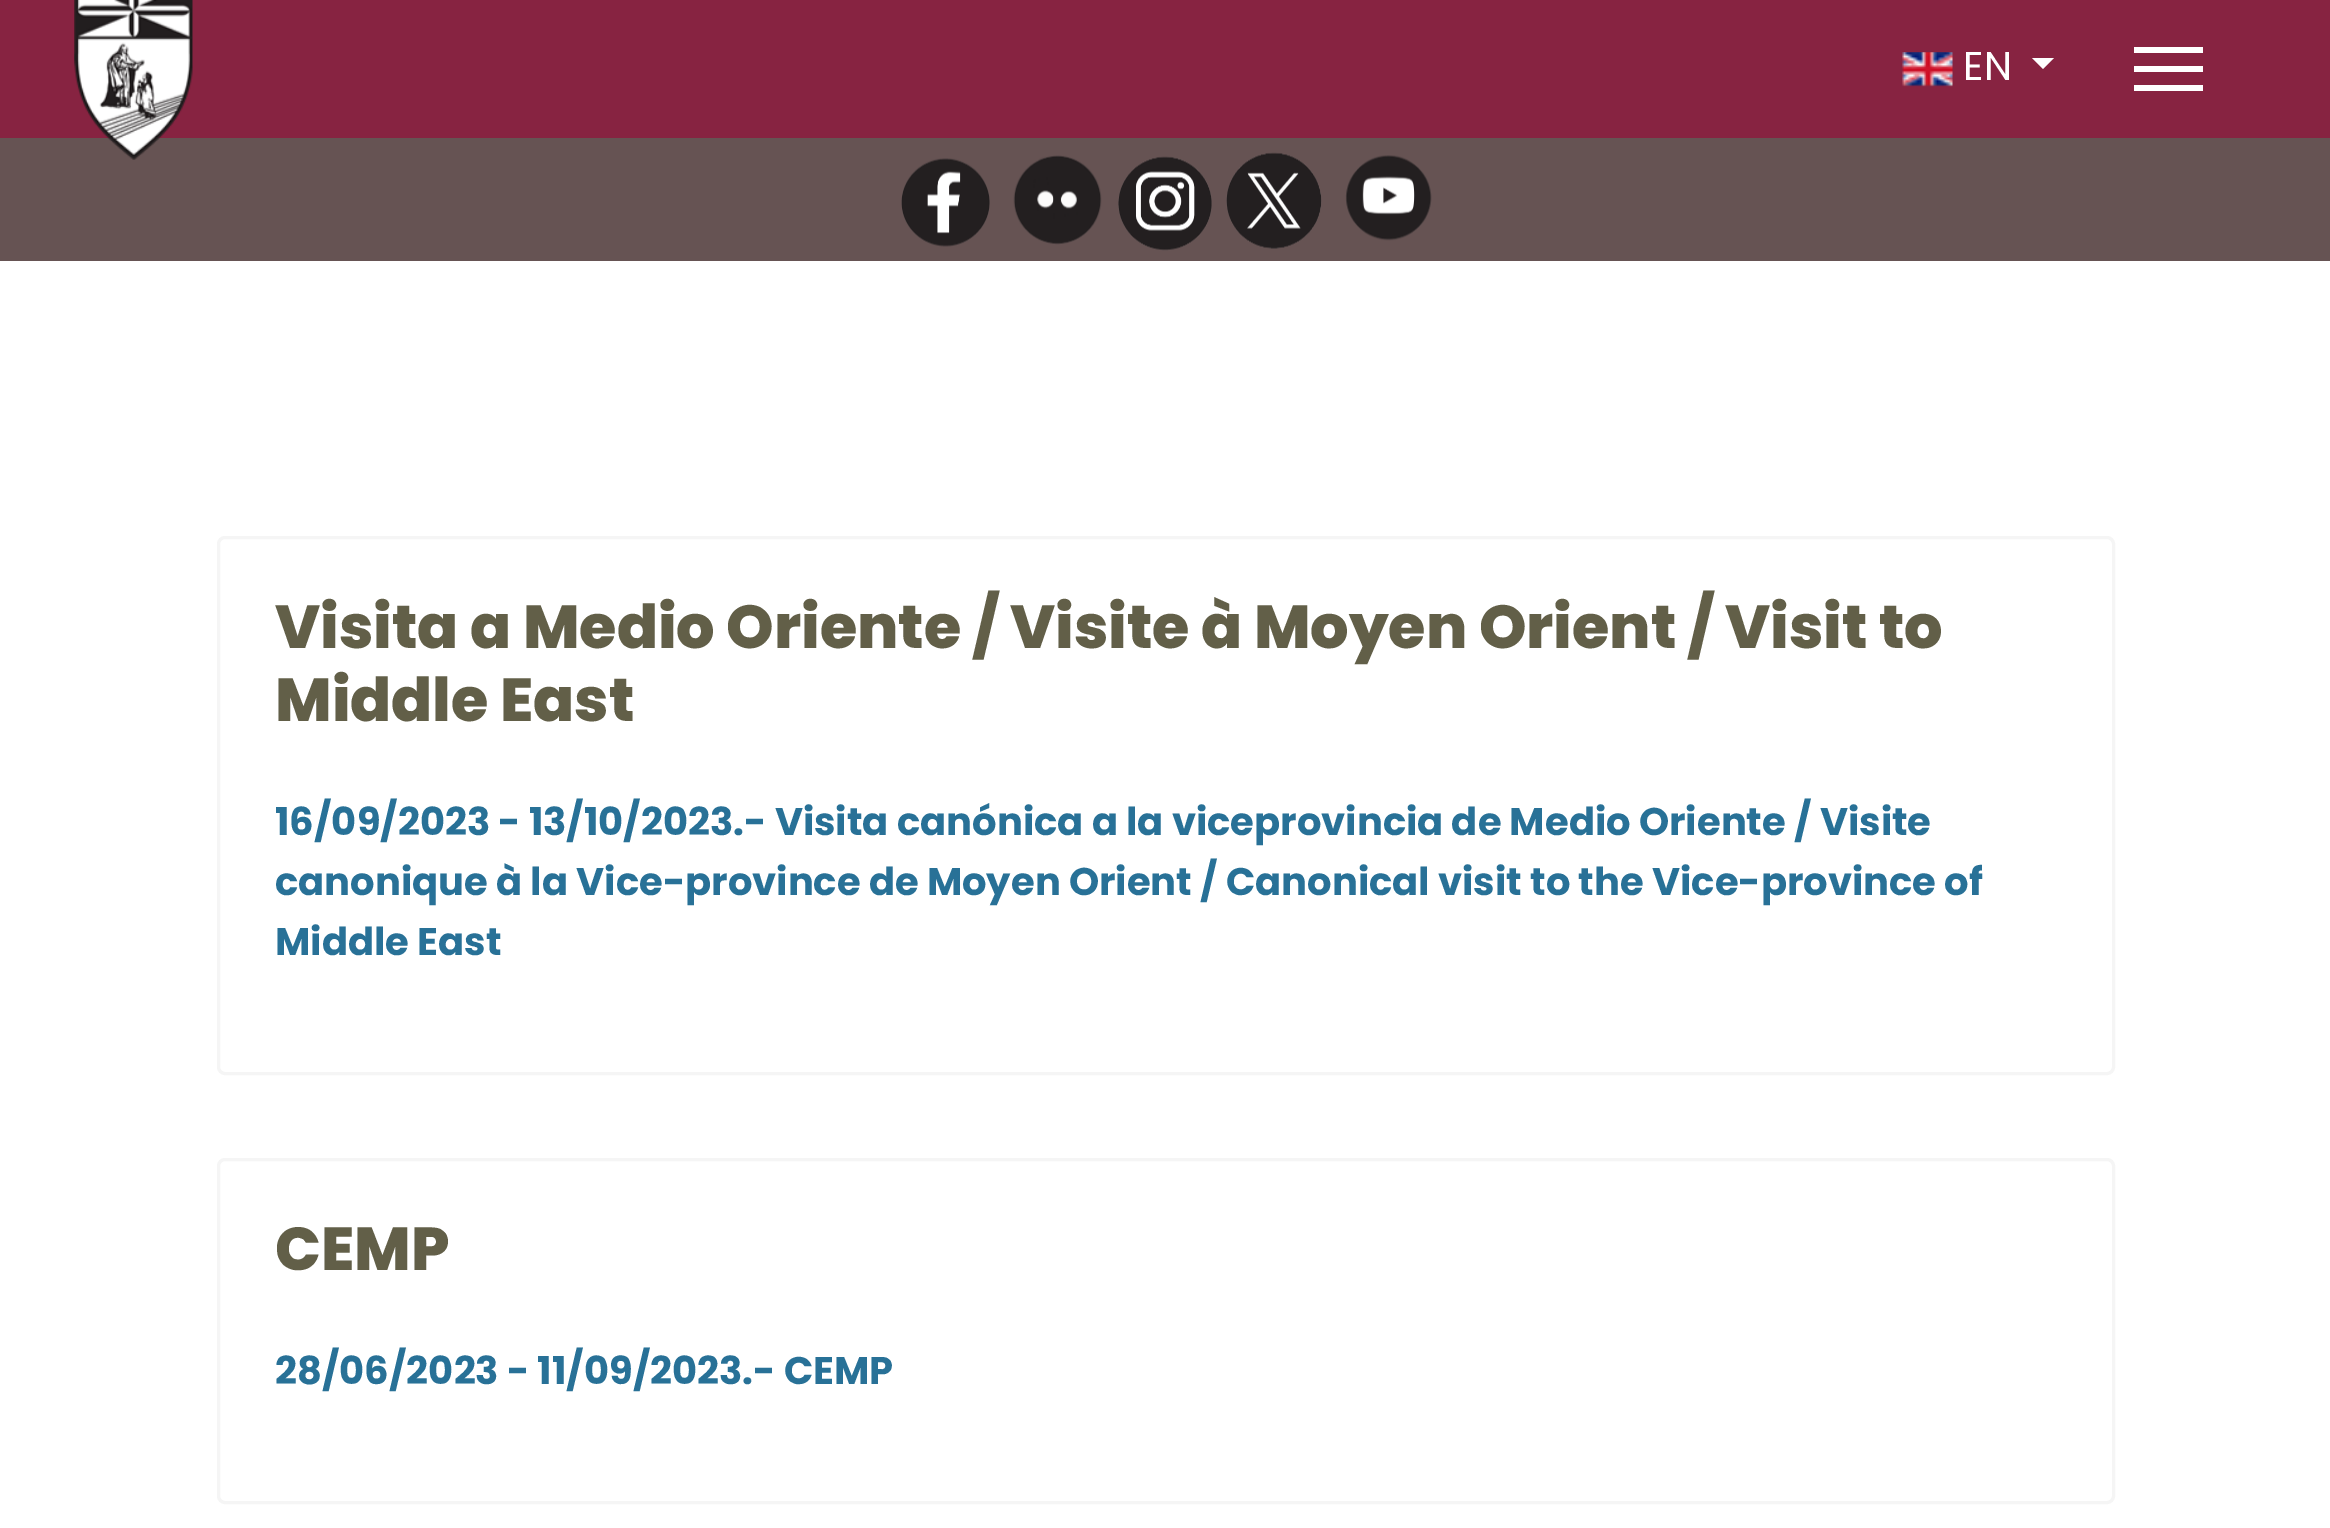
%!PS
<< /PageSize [2330 1528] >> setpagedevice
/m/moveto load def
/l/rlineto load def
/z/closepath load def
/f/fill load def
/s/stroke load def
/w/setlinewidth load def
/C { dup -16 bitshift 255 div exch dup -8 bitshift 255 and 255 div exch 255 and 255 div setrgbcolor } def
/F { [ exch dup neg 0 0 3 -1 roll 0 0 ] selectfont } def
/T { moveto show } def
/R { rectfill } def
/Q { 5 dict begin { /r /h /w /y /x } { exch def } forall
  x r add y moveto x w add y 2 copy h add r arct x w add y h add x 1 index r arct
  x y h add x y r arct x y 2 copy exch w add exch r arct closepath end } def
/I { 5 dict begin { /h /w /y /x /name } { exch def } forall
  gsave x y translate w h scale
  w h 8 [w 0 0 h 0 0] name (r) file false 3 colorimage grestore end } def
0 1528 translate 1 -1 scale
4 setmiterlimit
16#FFFFFF C
0 0 2330 1528 R
16#872341 C
0 0 2330 138 R
16#665353 C
0 138 2330 123 R
(1.rgb) 74 0 119 160 I
(2.rgb) 1902 52 51 35 I
/Poppins-Regular 40 F
16#FFFFFF C
(EN) 1963 80 T
2032 58 m 22 0 l -11 11 l z f
2134 47 69 6 R
2134 66 69 6 R
2134 85 69 6 R
(3.rgb) 901 158 89 89 I
(4.rgb) 1013 155 89 90 I
(5.rgb) 1118 156 94 95 I
(6.rgb) 1226 152 96 97 I
(7.rgb) 1345 155 87 86 I
16#F5F5F5 C
3 w
218.5 537.5 1895 536 6.5 Q s
/Poppins-ExtraBold 60.5 F
16#625F48 C
(Visita a Medio Oriente / Visite à Moyen Orient / Visit to) 275 648 T
(Middle East) 275 721 T
/Poppins-Bold 38.5 F
16#287197 C
(16/09/2023 - 13/10/2023.- Visita canónica a la viceprovincia de Medio Oriente / Visite) 275 835 T
(canonique à la Vice-province de Moyen Orient / Canonical visit to the Vice-province of) 275 895 T
(Middle East) 275 955 T
16#F5F5F5 C
218.5 1159.5 1895 343 6.5 Q s
/Poppins-ExtraBold 60.5 F
16#625F48 C
(CEMP) 275 1270 T
/Poppins-Bold 38.5 F
16#287197 C
(28/06/2023 - 11/09/2023.- CEMP) 275 1384 T
showpage
